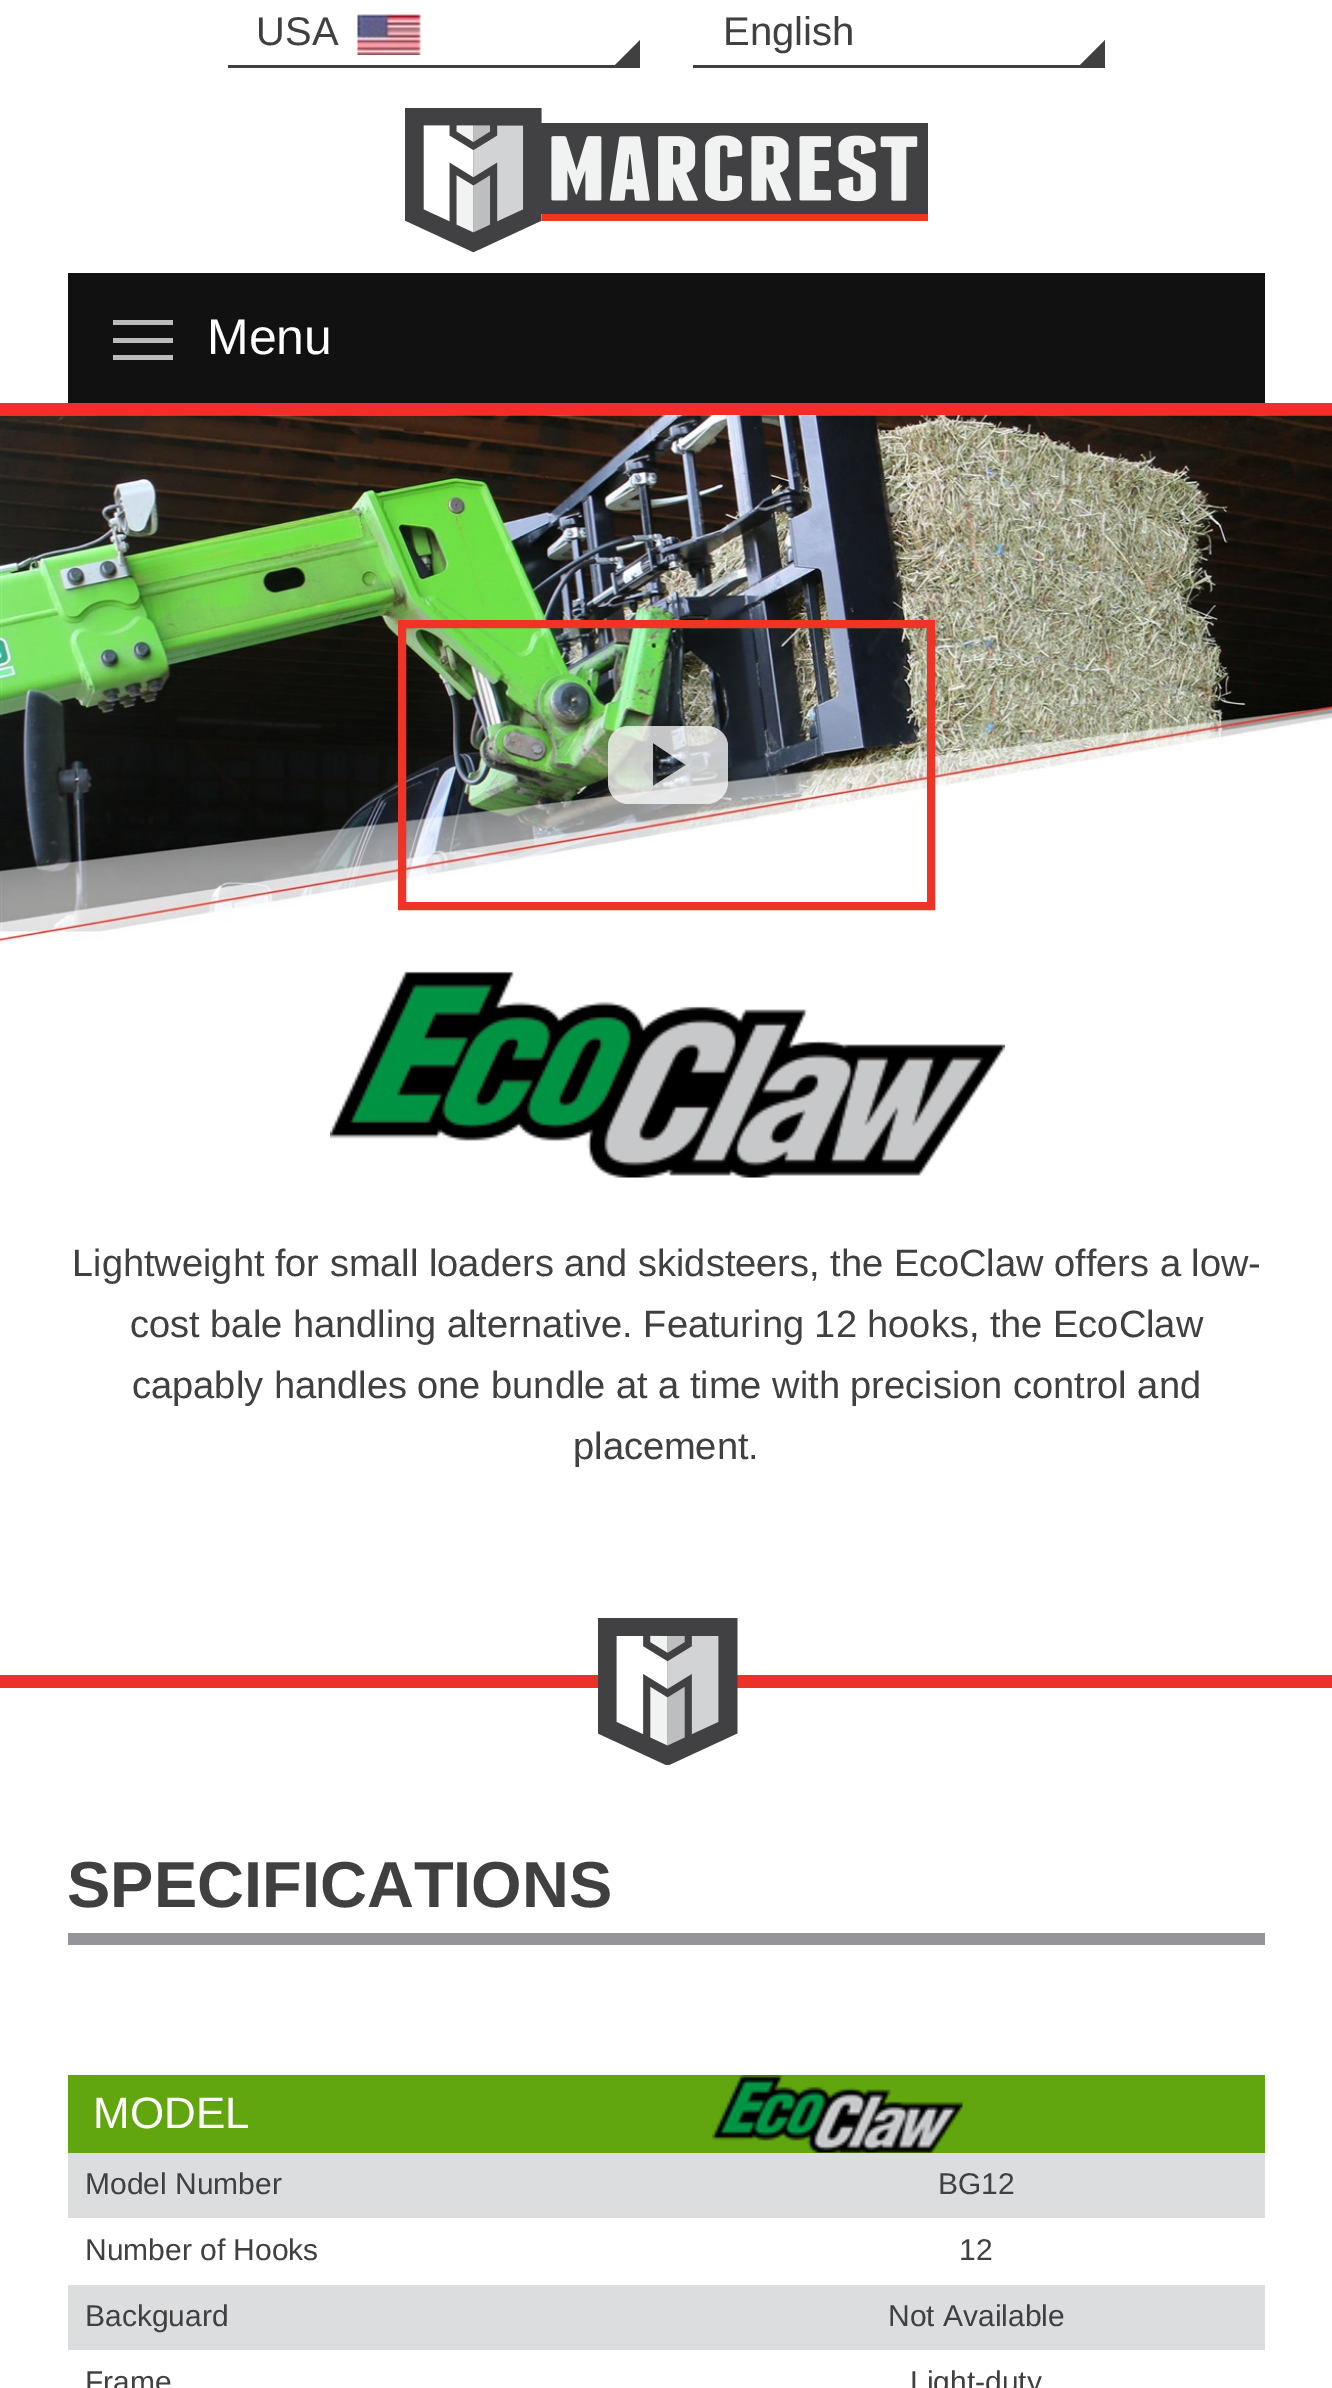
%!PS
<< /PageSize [1332 2388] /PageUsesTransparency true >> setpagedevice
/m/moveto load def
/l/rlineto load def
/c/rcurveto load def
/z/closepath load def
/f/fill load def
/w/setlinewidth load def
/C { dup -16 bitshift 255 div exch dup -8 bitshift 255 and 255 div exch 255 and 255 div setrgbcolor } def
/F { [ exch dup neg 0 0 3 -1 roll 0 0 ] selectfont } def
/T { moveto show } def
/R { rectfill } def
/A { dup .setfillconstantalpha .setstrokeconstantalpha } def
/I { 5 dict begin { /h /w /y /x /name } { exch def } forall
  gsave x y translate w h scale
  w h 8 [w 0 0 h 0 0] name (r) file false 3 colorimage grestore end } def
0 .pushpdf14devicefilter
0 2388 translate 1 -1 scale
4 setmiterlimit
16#FFFFFF C
0 0 1332 2388 R
16#EE3126 C
0 403 1332 12 R
16#404041 C
228 65 412 3 R
/LiberationSans-Regular 40 F
(USA) 256 45 T
(1.rgb) 357 14 64 41 I
640 65 m -25 0 l 25 -25 l z f
693 65 412 3 R
(English) 723 45 T
1105 65 m -25 0 l 25 -25 l z f
(2.rgb) 405 108 523 145 I
16#111111 C
68 273 1197 130 R
16#BBBBBB C
113 338 60 5 R
113 320 60 5 R
113 355 60 5 R
/LiberationSans-Regular 50 F
16#FFFFFF C
(Menu) 207 354 T
16#EE3126 C
0 1675 1332 13 R
(3.rgb) 0 415 1332 529 I
16#ED3426 C
8 w
402 624 529 282 rectstroke
0.75 A
16#FFFFFF C
707 726 m -79 0 l -11 0 -20 9 -20 20 c 0 37 l 0 11 9 21 20 21 c 79 0 l 11 0 21 -10 21 -21 c 0 -37 l 0 -11 -10 -20 -21 -20 c z 653 786 m 0 -43 l 33 22 l z f
1 A
(4.rgb) 330 971 675 207 I
/LiberationSans-Regular 38 F
16#404041 C
(Lightweight for small loaders and skidsteers, the EcoClaw offers a low-) 72 1276 T
(cost bale handling alternative. Featuring 12 hooks, the EcoClaw) 130 1337 T
(capably handles one bundle at a time with precision control and) 132 1398 T
(placement.) 573 1459 T
(5.rgb) 598 1618 140 147 I
16#939598 C
68 1933 1197 12 R
/LiberationSans-Bold 65 F
16#404041 C
(SPECIFICATIONS) 67 1907 T
16#61A60E C
68 2075 1197 78 R
/LiberationSans-Regular 44 F
16#FFFFFF C
(MODEL) 93 2128 T
(6.rgb) 712 2075 251 78 I
16#DCDDDE C
68 2153 1197 65 R
/LiberationSans-Regular 30 F
16#404041 C
(Model Number) 85 2194 T
(BG12) 938 2194 T
(Number of Hooks) 85 2260 T
(12) 959 2260 T
16#DCDDDE C
68 2285 1197 65 R
16#404041 C
(Backguard) 85 2326 T
(Not Available) 888 2326 T
(Frame) 85 2392 T
(Light-duty) 910 2392 T
.poppdf14devicefilter showpage
